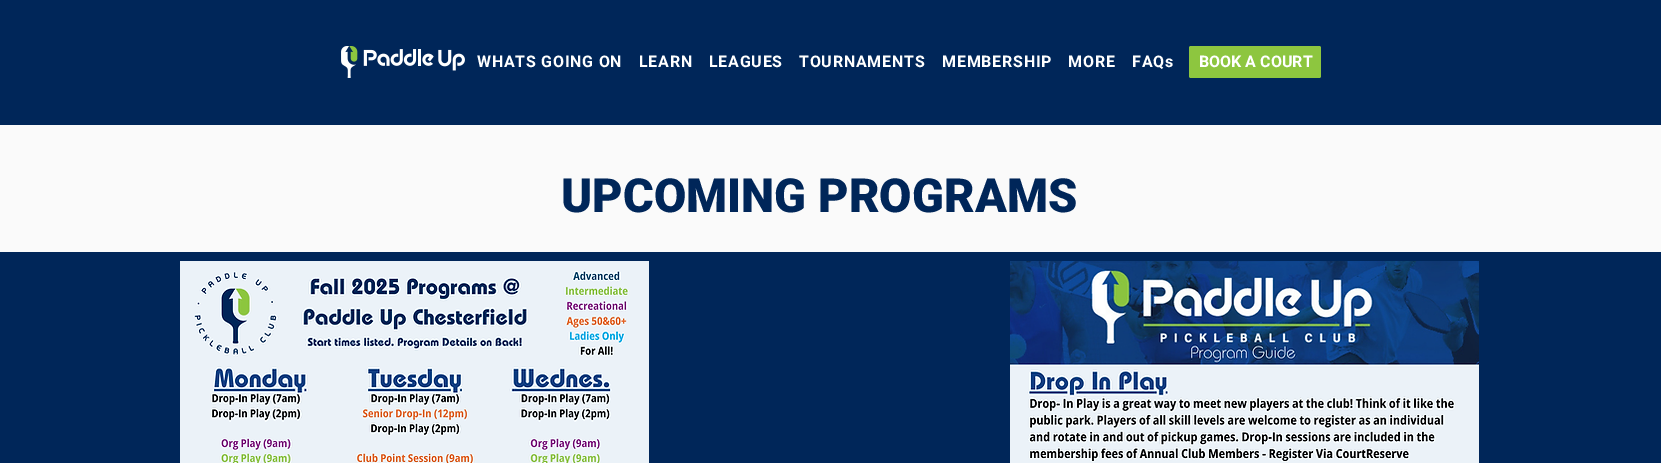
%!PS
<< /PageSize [1661 463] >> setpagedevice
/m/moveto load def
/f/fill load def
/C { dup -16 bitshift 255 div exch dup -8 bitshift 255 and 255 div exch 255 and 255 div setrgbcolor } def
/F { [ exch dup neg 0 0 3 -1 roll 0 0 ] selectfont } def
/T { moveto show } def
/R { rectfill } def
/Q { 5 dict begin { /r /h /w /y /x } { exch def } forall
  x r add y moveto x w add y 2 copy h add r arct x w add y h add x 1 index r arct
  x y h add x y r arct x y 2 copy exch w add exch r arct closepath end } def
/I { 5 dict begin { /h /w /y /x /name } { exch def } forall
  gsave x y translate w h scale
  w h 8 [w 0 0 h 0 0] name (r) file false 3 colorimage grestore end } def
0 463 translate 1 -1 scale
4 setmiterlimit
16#002659 C
0 0 1661 463 R
(1.rgb) 341 46 124 32 I
/Heebo-Bold 16 F
16#FFFFFF C
477 67 m .75 0 (WHATS GOING ON) ashow
639 67 m .75 0 (LEARN) ashow
709 67 m .75 0 (LEAGUES) ashow
799 67 m .75 0 (TOURNAMENTS) ashow
942 67 m .75 0 (MEMBERSHIP) ashow
1068 67 m .75 0 (MORE) ashow
1132 67 m .75 0 (FAQs) ashow
16#8DC63F C
1189 46 132 32 2 Q f
16#FFFFFF C
(BOOK A COURT) 1199 67 T
16#FAFAFA C
0 125 1661 127 R
/Roboto-Black 47 F
16#002659 C
(UPCOMING PROGRAMS) 561 212 T
(2.rgb) 180 261 469 202 I
(3.rgb) 1010 261 469 202 I
showpage
